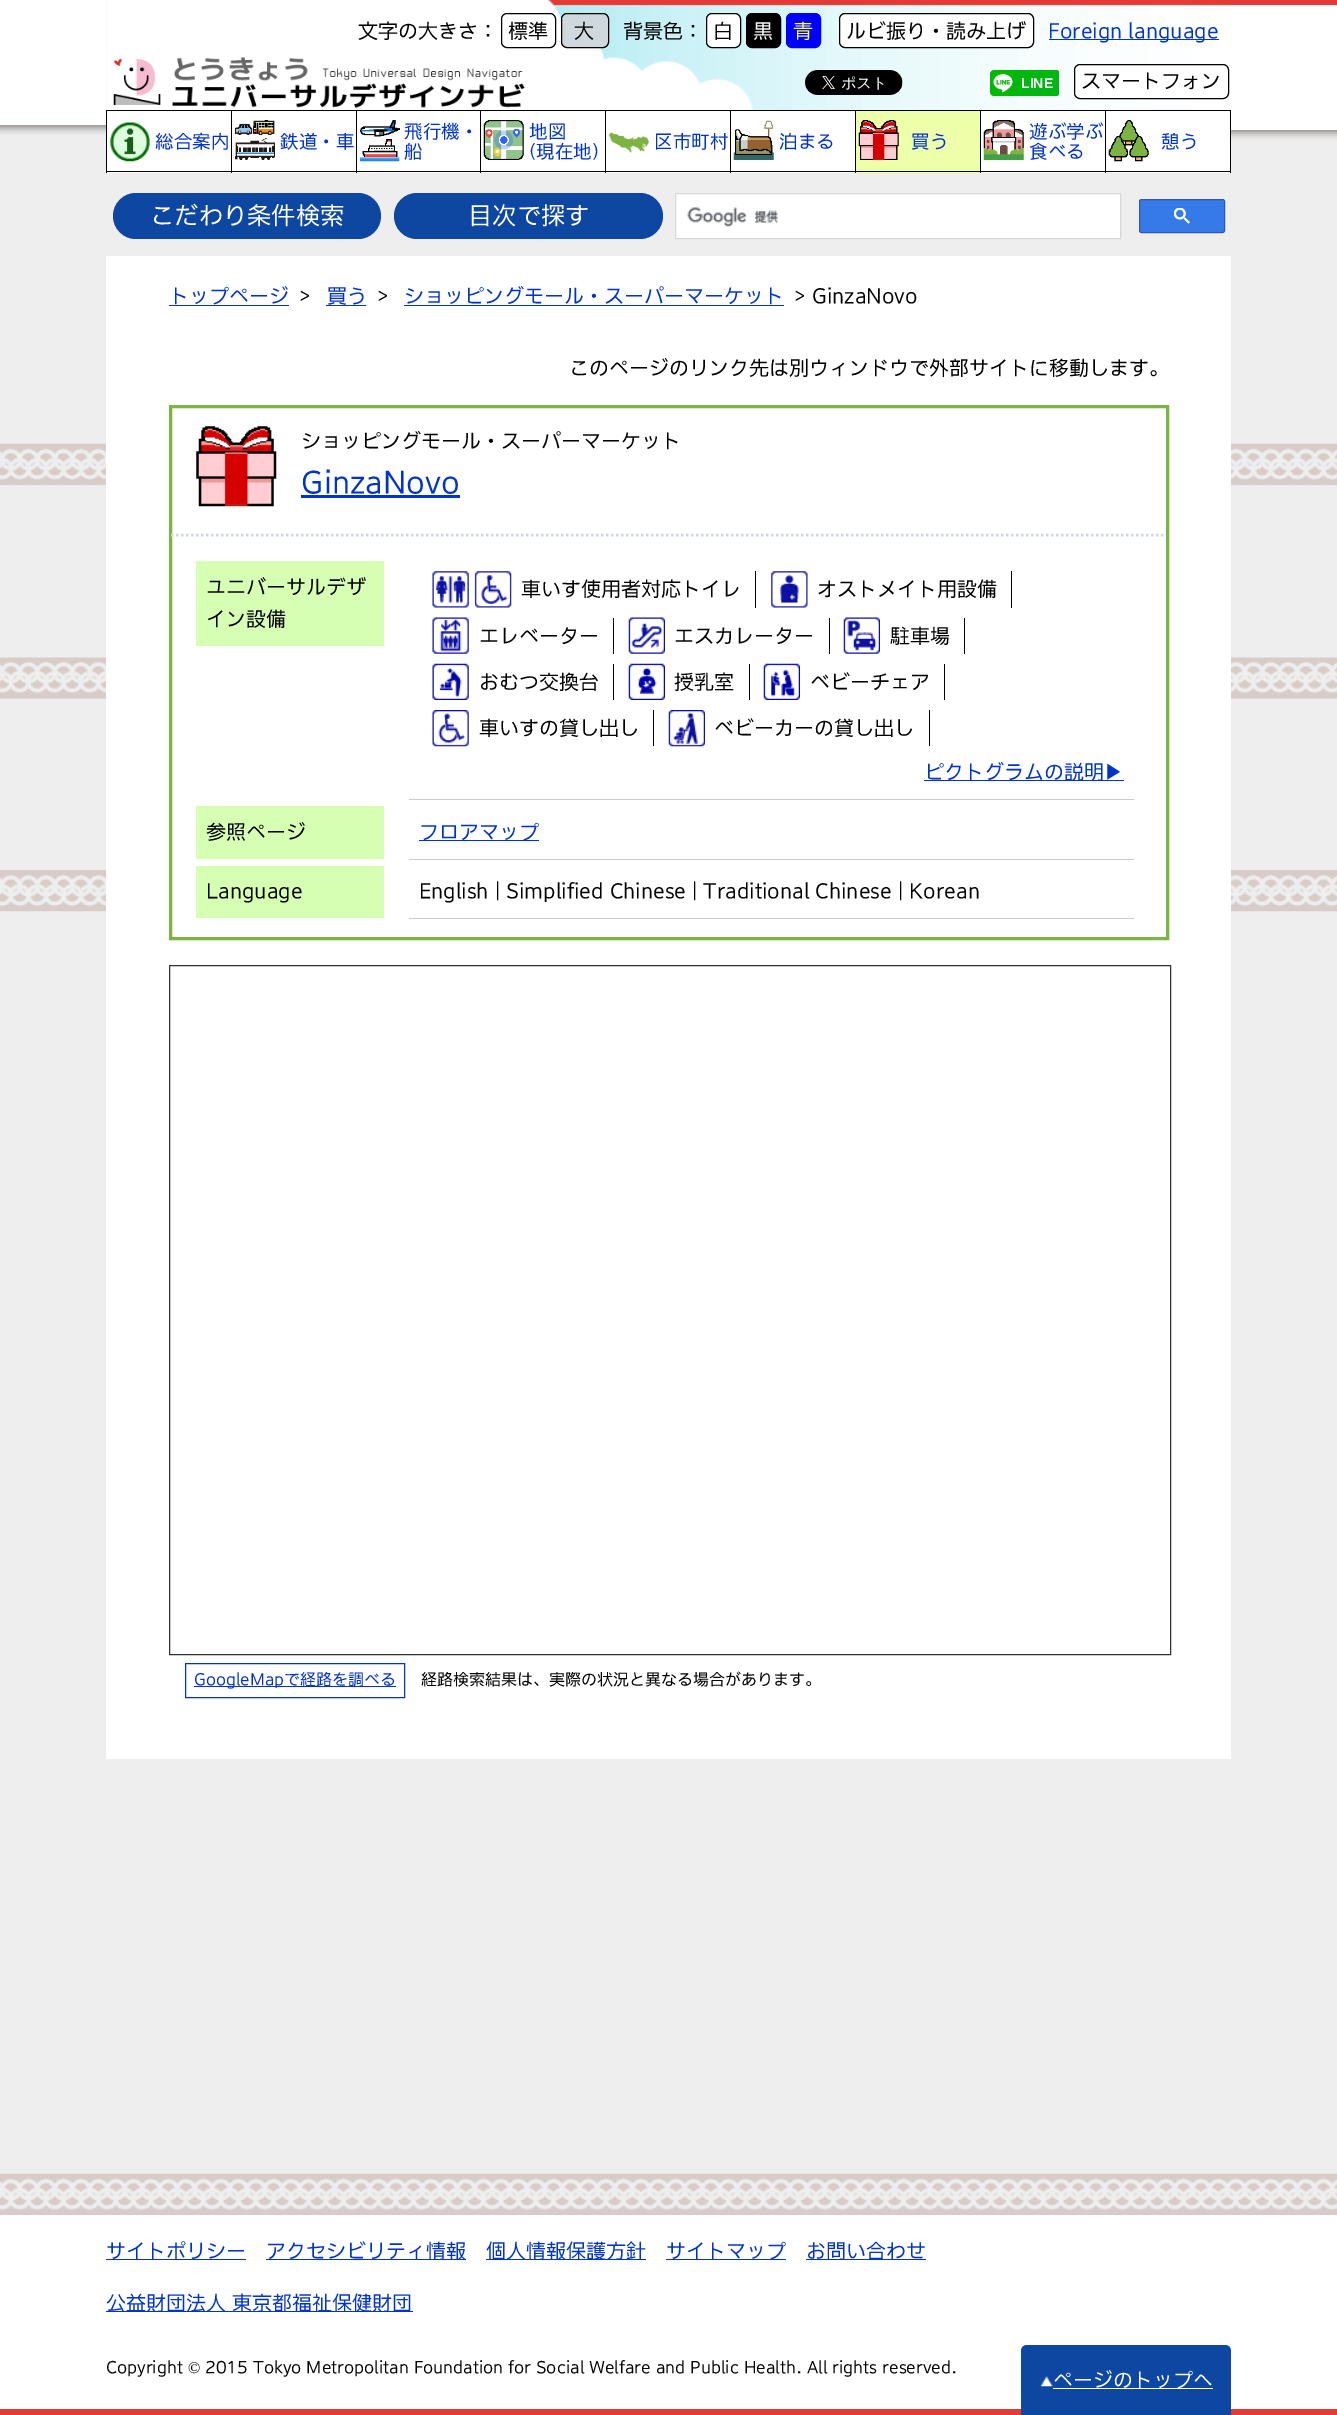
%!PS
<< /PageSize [1337 2415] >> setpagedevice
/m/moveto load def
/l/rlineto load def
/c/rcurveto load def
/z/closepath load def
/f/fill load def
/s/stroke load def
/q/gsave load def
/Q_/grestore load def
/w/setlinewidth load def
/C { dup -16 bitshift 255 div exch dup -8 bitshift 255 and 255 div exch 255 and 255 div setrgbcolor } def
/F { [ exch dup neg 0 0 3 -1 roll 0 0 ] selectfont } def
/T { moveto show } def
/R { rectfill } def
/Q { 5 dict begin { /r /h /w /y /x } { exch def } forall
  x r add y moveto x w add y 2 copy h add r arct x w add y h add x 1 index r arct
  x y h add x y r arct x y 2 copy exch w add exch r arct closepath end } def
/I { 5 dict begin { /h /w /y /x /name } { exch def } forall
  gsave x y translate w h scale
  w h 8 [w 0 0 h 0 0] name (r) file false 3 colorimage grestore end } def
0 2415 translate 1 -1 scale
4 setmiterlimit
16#EEEEEE C
0 0 1337 2415 R
(1.rgb) 0 443 1337 469 I
(2.rgb) 106 0 1126 140 I
16#FFFFFF C
0 0 106 125 R
16#000000 C
1105 110 126 1 R
16#FFFFFF C
107 111 1123 62 R
16#000000 C
1230 110 1 63 R
1105 171 126 1 R
1105 110 1 63 R
980 110 126 1 R
980 171 126 1 R
980 110 1 63 R
855 110 126 1 R
16#EEFFAA C
856 111 124 62 R
16#000000 C
855 171 126 1 R
855 110 1 63 R
730 110 126 1 R
730 171 126 1 R
730 110 1 63 R
605 110 126 1 R
605 171 126 1 R
605 110 1 63 R
480 110 126 1 R
480 171 126 1 R
480 110 1 63 R
356 110 125 1 R
356 171 125 1 R
356 110 1 63 R
231 110 127 1 R
231 171 127 1 R
231 110 1 63 R
106 110 127 1 R
106 171 127 1 R
106 110 1 63 R
(3.rgb) 0 125 107 10 I
(4.rgb) 113 57 412 51 I
/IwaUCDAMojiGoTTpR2-Regular 20 F
(文字の大きさ：) 358 38 T
501.5 13.5 54 34 5.5 Q s
(標準) 508 38 T
16#CFD8DC C
561.5 13.5 47 34 5.5 Q q f Q_
16#000000 C
s
(大) 574 38 T
(背景色：) 623 38 T
16#FFFFFF C
706.5 13.5 34 34 5.5 Q q f Q_
16#000000 C
s
(白) 713 38 T
746.5 13.5 34 34 5.5 Q q f Q_
s
16#FFFFFF C
(黒) 753 38 T
16#0000FF C
786.5 13.5 34 34 5.5 Q q f Q_
s
16#FFFF40 C
(青) 793 38 T
16#FFFFFF C
839.5 13.5 194 34 5.5 Q q f Q_
16#000000 C
s
(ルビ振り・読み上げ) 846 38 T
16#0033CC C
1049 39 170 1 R
(Foreign language) 1048 38 T
(5.rgb) 805 70 98 25 I
q
805 70 254 38 rectclip
16#00B712 C
990 70 70 26 4 Q f
Q_
(6.rgb) 990 70 27 27 I
/LiberationSans-Bold 14 F
16#FFFFFF C
(LINE) 1021 88 T
1074.5 64.5 154 34 5.5 Q q f Q_
16#000000 C
s
/IwaUCDAMojiGoTTpR2-Regular 20 F
(スマートフォン) 1081 88 T
16#FFFFFF C
1231 5 106 125 R
16#E53935 C
1231 0 106 5 R
(7.rgb) 1231 130 106 10 I
(8.rgb) 110 122 40 40 I
/IwaUCDAMojiGoTTpR2-Regular 18.5 F
16#0033CC C
(総合案内) 155 148 T
(9.rgb) 235 120 40 40 I
(鉄道・車) 280 148 T
(10.rgb) 360 120 40 42 I
(飛行機・) 404 138 T
(船) 404 158 T
(11.rgb) 483 120 41 40 I
(地図) 529 138 T
(\(現在地\)) 529 158 T
(12.rgb) 608 132 41 21 I
(区市町村) 654 148 T
(13.rgb) 733 120 41 40 I
(泊まる) 779 148 T
(14.rgb) 858 120 41 40 I
(買う) 911 148 T
(15.rgb) 983 120 41 40 I
(遊ぶ学ぶ) 1029 138 T
(食べる) 1029 158 T
(16.rgb) 1108 120 41 42 I
(憩う) 1161 148 T
16#0D47A1 C
113 193 268 46 23 Q f
/IwaUCDAMojiGoTTpR2-Regular 24.25 F
16#FFFFFF C
(こだわり条件検索) 150 224 T
16#0D47A1 C
394 193 269 46 23 Q f
16#FFFFFF C
(目次で探す) 468 224 T
675.5 193.5 m 445 0 l 0 45 l -445 0 l z q f Q_
16#D9D9D9 C
s
(17.rgb) 687 207 92 20 I
16#357AE8 C
1139.5 199.5 85 33 2 Q q f Q_
16#2F5BB7 C
s
(18.rgb) 1174 208 16 16 I
16#FFFFFF C
106 256 1125 1503 R
/IwaUCDAMojiGoTTpR2-Regular 20 F
16#0033CC C
(トップページ) 169 303 T
169 305 120 1 R
16#000000 C
(>) 299 303 T
16#0033CC C
(買う) 327 303 T
326 305 40 1 R
16#000000 C
(>) 377 303 T
16#0033CC C
(ショッピングモール・スーパーマーケット) 404 303 T
404 305 380 1 R
16#000000 C
(> GinzaNovo) 794 303 T
(このページのリンク先は別ウィンドウで外部サイトに移動します。) 569 375 T
16#7CB342 C
3 w
170.5 406.5 997 532 rectstroke
(19.rgb) 196 426 81 81 I
16#000000 C
(ショッピングモール・スーパーマーケット) 301 448 T
/IwaUCDAMojiGoTTpR2-Regular 30 F
16#0033CC C
(GinzaNovo) 301 493 T
301 495 159 3 R
16#CFD8DC C
2.5 w
[2.5 2.5] 0 setdash
171 535 m 995 0 l s
16#D6FFB4 C
196 561 188 85 R
/IwaUCDAMojiGoTTpR2-Regular 20 F
16#000000 C
(ユニバーサルデザ) 206 594 T
(イン設備) 206 626 T
16#CCCCCC C
409 799 725 1 R
16#000000 C
755 571 1 37 R
(20.rgb) 432 571 80 37 I
(車いす使用者対応トイレ) 521 596 T
1011 571 1 37 R
(21.rgb) 771 571 37 37 I
(オストメイト用設備) 817 596 T
613 618 1 36 R
(22.rgb) 432 617 37 37 I
(エレベーター) 479 643 T
829 618 1 36 R
(23.rgb) 628 617 37 37 I
(エスカレーター) 674 643 T
964 618 1 36 R
(24.rgb) 843 617 37 37 I
(駐車場) 890 643 T
613 664 1 36 R
(25.rgb) 432 663 37 37 I
(おむつ交換台) 479 689 T
749 664 1 36 R
(26.rgb) 628 663 37 37 I
(授乳室) 674 689 T
944 664 1 36 R
(27.rgb) 763 663 37 37 I
(ベビーチェア) 810 689 T
653 710 1 36 R
(28.rgb) 432 710 37 37 I
(車いすの貸し出し) 479 735 T
929 710 1 36 R
(29.rgb) 668 710 37 37 I
(ベビーカーの貸し出し) 714 735 T
16#0033CC C
924 780 200 1 R
(ピクトグラムの説明) 924 779 T
/WenQuanYiZenHei-Medium 20 F
(▶) 1104 779 T
16#D6FFB4 C
196 806 188 53 R
/IwaUCDAMojiGoTTpR2-Regular 20 F
16#000000 C
(参照ページ) 206 839 T
16#CCCCCC C
409 859 725 1 R
16#0033CC C
419 840 120 1 R
(フロアマップ) 419 839 T
16#D6FFB4 C
196 866 188 52 R
16#000000 C
(Language) 206 898 T
16#CCCCCC C
409 918 725 1 R
16#000000 C
(English | Simplified Chinese | Traditional Chinese | Korean) 419 898 T
16#333333 C
1 w
[] 0 setdash
169.5 965.5 1001 689 rectstroke
16#0033CC C
185.5 1663.5 219 34 rectstroke
194 1686 202 1 R
/IwaUCDAMojiGoTTpR2-Regular 16 F
(GoogleMapで経路を調べる) 194 1685 T
16#000000 C
(経路検索結果は、実際の状況と異なる場合があります。) 421 1685 T
16#FFFFFF C
0 2215 1337 194 R
(30.rgb) 0 2173 1337 42 I
16#E53935 C
0 2409 1337 6 R
16#0033CC C
106 2259 140 1 R
/IwaUCDAMojiGoTTpR2-Regular 20 F
(サイトポリシー) 106 2258 T
266 2259 200 1 R
(アクセシビリティ情報) 266 2258 T
486 2259 160 1 R
(個人情報保護方針) 486 2258 T
666 2259 120 1 R
(サイトマップ) 666 2258 T
806 2259 120 1 R
(お問い合わせ) 806 2258 T
106 2311 307 1 R
(公益財団法人 東京都福祉保健財団) 106 2310 T
/IwaUCDAMojiGoTTpR2-Regular 16.25 F
16#000000 C
(Copyright) 106 2373 T
/LiberationSerif-Regular 16.25 F
(©) 188 2373 T
/IwaUCDAMojiGoTTpR2-Regular 16.25 F
(2015 Tokyo Metropolitan Foundation for Social Welfare and Public Health. All rights reserved.) 205 2373 T
16#0D47A1 C
1027 2345 m 198 0 l 3.5 0 6 2.5 6 6 c 0 64 l -210 0 l 0 -64 l 0 -3.5 2.5 -6 6 -6 c z f
(31.rgb) 1040 2376 13 11 I
16#FFFFFF C
1053 2388 160 1 R
/IwaUCDAMojiGoTTpR2-Regular 20 F
(ページのトップへ) 1053 2387 T
showpage
